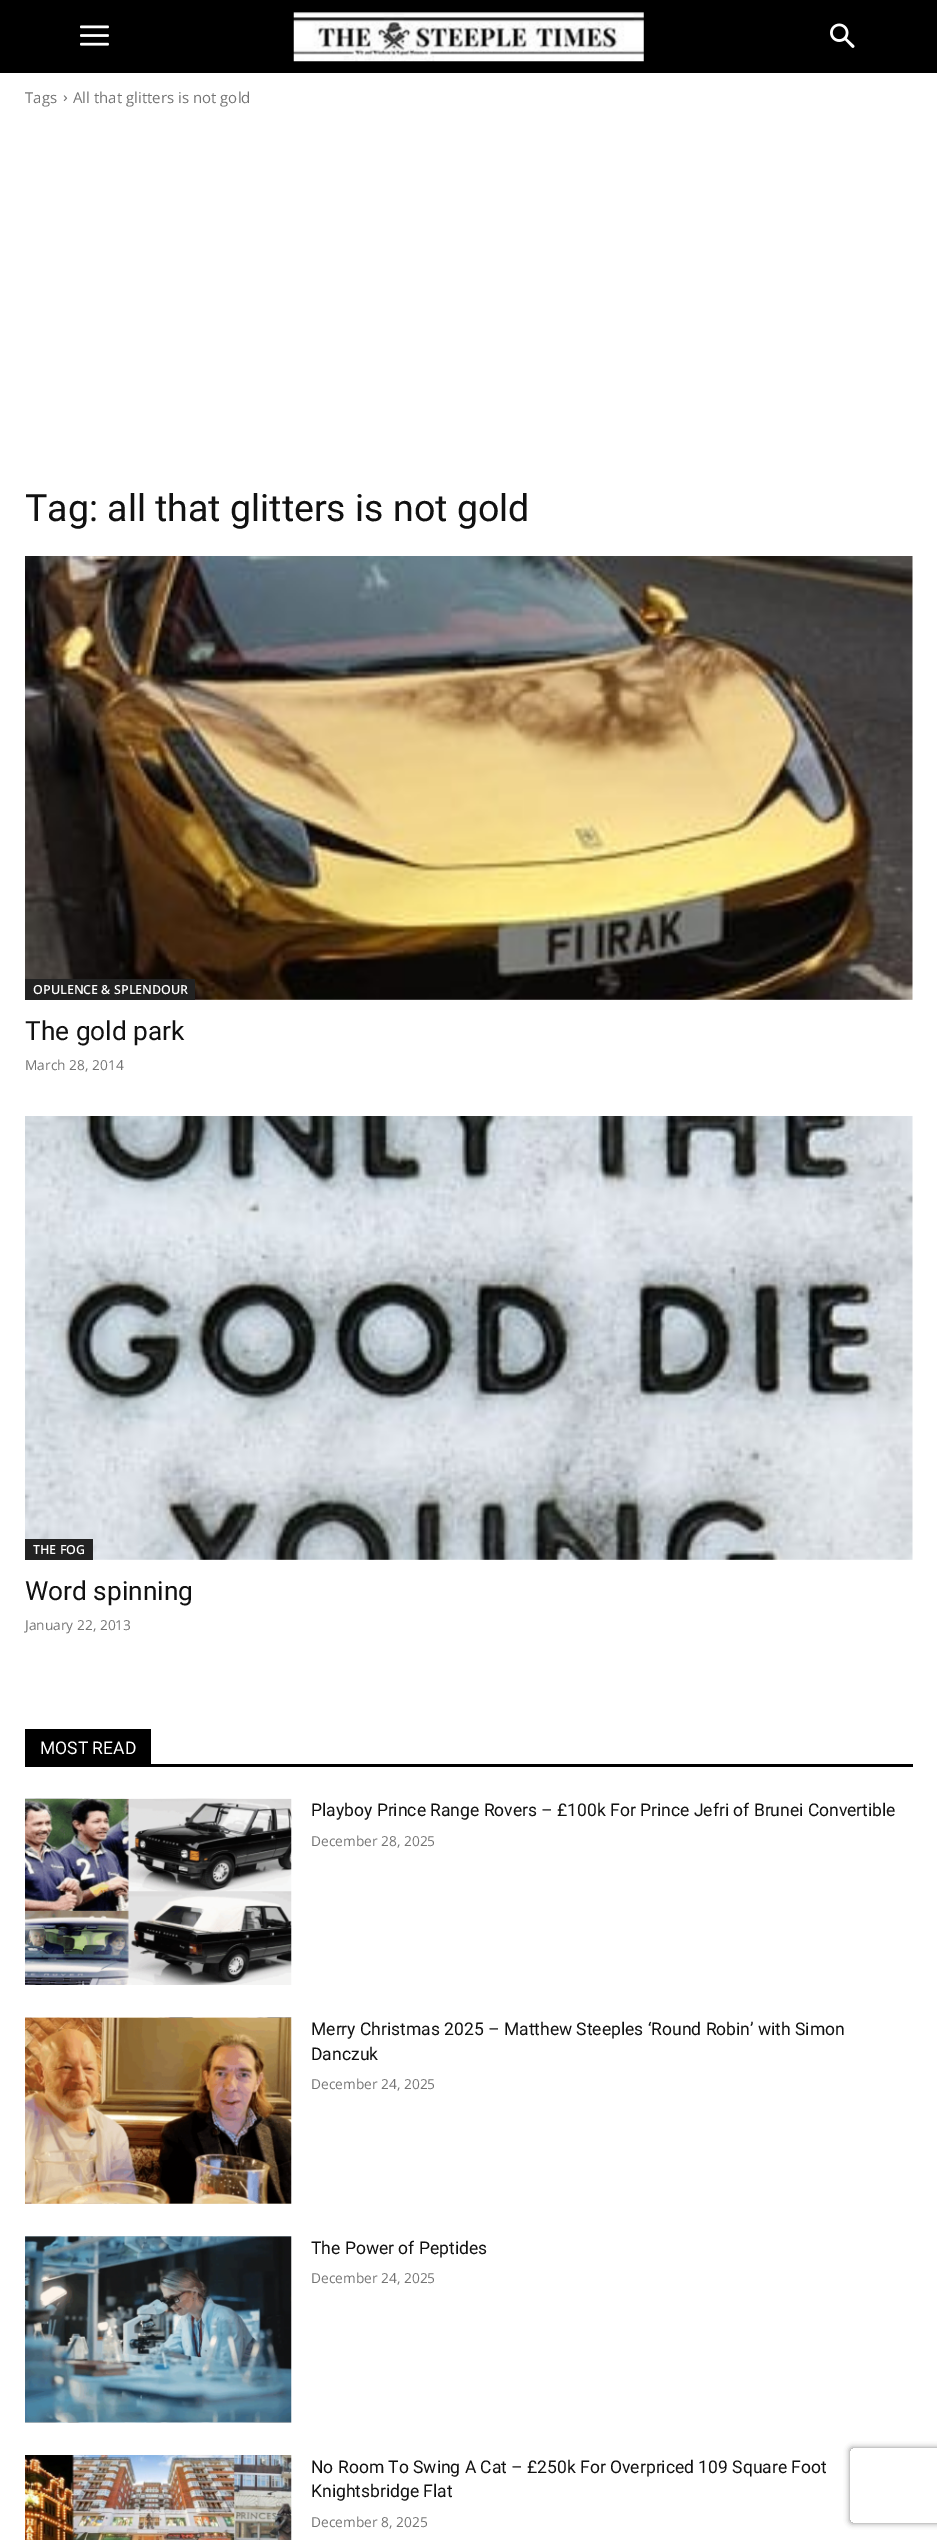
%!PS
<< /PageSize [937 2540] /PageUsesTransparency true >> setpagedevice
/m/moveto load def
/l/rlineto load def
/c/rcurveto load def
/z/closepath load def
/q/gsave load def
/Q_/grestore load def
/C { dup -16 bitshift 255 div exch dup -8 bitshift 255 and 255 div exch 255 and 255 div setrgbcolor } def
/F { [ exch dup neg 0 0 3 -1 roll 0 0 ] selectfont } def
/T { moveto show } def
/R { rectfill } def
/A { dup .setfillconstantalpha .setstrokeconstantalpha } def
/Q { 5 dict begin { /r /h /w /y /x } { exch def } forall
  x r add y moveto x w add y 2 copy h add r arct x w add y h add x 1 index r arct
  x y h add x y r arct x y 2 copy exch w add exch r arct closepath end } def
/S { 12 dict begin { /a /b /q /h /w /y /x } { exch def } forall gsave /was 0 def
  9 -2 -9 { dup b mul 4 div /e exch def 1 sub .425 mul 2.718 exch exp 1 add a .99 .min exch div /now exch def
    1 1 now sub 1 was sub div sub A /was now def
    w h .min e 2 mul add 0 gt { x e sub y e sub w e 2 mul add h e 2 mul add
      q e add b .6 mul add w h .min 2 div e add .min 0 .max Q fill } if } for grestore end } def
/I { 5 dict begin { /h /w /y /x /name } { exch def } forall
  gsave x y translate w h scale
  w h 8 [w 0 0 h 0 0] name (r) file false 3 colorimage grestore end } def
0 .pushpdf14devicefilter
0 2540 translate 1 -1 scale
4 setmiterlimit
16#FFFFFF C
0 0 937 2540 R
16#000000 C
0 0 937 73 R
(1.rgb) 80 25 29 21 I
(2.rgb) 293 12 351 50 I
(3.rgb) 830 23 25 25 I
/OpenSans-Regular 15 F
16#747474 C
(Tags) 25 103 T
(4.rgb) 63 95 5 7 I
(All that glitters is not gold) 73 103 T
/Roboto-Regular 37.5 F
16#111111 C
(Tag: all that glitters is not gold) 25 521 T
(5.rgb) 25 556 888 444 I
16#222222 C
25 979 170 21 R
/OpenSans-SemiBold 12.5 F
16#FFFFFF C
(OPULENCE & SPLENDOUR) 33 994 T
/Roboto-Regular 26.25 F
16#111111 C
(The gold park) 25 1040 T
/OpenSans-Regular 13.75 F
16#747474 C
(March 28, 2014) 25 1070 T
(6.rgb) 25 1116 888 444 I
16#222222 C
25 1539 68 21 R
/OpenSans-SemiBold 12.5 F
16#FFFFFF C
(THE FOG) 33 1554 T
/Roboto-Regular 26.25 F
16#111111 C
(Word spinning) 25 1600 T
/OpenSans-Regular 13.75 F
16#747474 C
(January 22, 2013) 25 1630 T
16#000000 C
25 1764 888 3 R
25 1729 126 35 R
/Roboto-Regular 17.5 F
16#FFFFFF C
(MOST READ) 40 1754 T
(7.rgb) 25 1798 267 187 I
16#111111 C
(Playboy Prince Range Rovers – £100k For Prince Jefri of Brunei Convertible) 311 1816 T
/OpenSans-Regular 13.75 F
16#747474 C
(December 28, 2025) 311 1846 T
(8.rgb) 25 2017 267 187 I
/Roboto-Regular 17.5 F
16#111111 C
(Merry Christmas 2025 – Matthew Steeples ‘Round Robin’ with Simon) 311 2035 T
(Danczuk) 311 2060 T
/OpenSans-Regular 13.75 F
16#747474 C
(December 24, 2025) 311 2089 T
(9.rgb) 25 2236 267 187 I
/Roboto-Regular 17.5 F
16#111111 C
(The Power of Peptides) 311 2254 T
/OpenSans-Regular 13.75 F
16#747474 C
(December 24, 2025) 311 2283 T
(10.rgb) 25 2455 267 85 I
/Roboto-Regular 17.5 F
16#111111 C
(No Room To Swing A Cat – £250k For Overpriced 109 Square Foot) 311 2473 T
(Knightsbridge Flat) 311 2497 T
/OpenSans-Regular 13.75 F
16#747474 C
(December 8, 2025) 311 2527 T
q
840 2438 m 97 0 l 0 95 l -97 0 l z 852.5 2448 m 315 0 l 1.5 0 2.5 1 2.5 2.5 c 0 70 l 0 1.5 -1 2.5 -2.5 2.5 c -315 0 l -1.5 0 -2.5 -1 -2.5 -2.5 c 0 -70 l 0 -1.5 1 -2.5 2.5 -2.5 c z eoclip newpath
16#808080 C
850 2448 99 75 2.5 3 1 S
Q_
.poppdf14devicefilter showpage
